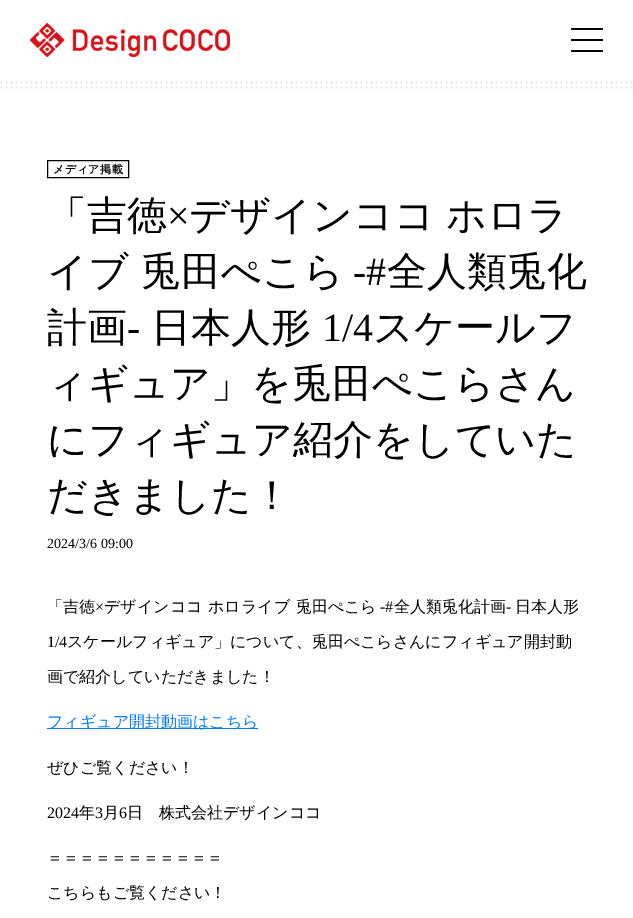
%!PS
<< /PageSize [633 918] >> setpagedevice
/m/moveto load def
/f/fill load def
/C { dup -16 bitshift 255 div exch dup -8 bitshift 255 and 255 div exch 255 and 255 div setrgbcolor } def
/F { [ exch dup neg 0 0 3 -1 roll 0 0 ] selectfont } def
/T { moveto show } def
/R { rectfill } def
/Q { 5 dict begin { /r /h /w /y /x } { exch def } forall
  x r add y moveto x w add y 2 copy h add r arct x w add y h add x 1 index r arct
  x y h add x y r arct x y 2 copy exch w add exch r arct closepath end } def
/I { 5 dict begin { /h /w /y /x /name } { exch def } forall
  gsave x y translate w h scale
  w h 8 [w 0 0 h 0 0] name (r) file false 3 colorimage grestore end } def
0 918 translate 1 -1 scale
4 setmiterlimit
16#FFFFFF C
0 0 633 918 R
(1.rgb) 30 23 200 34 I
16#000000 C
571 28 32 2 1 Q f
571 39 32 2 1 Q f
571 50 32 2 1 Q f
(2.rgb) 0 81 633 8 I
47.5 160.5 81 17 rectstroke
/WenQuanYiZenHei-Bold 11 F
53 173 m .5 0 (メディア掲載) ashow
/WenQuanYiZenHei-Medium 40 F
(「吉徳) 47 229 T
/LiberationSerif-Regular 40 F
(×) 167 229 T
/WenQuanYiZenHei-Medium 40 F
189 229 m -1 0 32 (デザインココ ホロラ) widthshow
(イブ 兎田ぺこら) 47 285 T
/LiberationSerif-Regular 40 F
(-#) 353 285 T
/WenQuanYiZenHei-Medium 40 F
(全人類兎化) 387 285 T
(計画) 47 341 T
/LiberationSerif-Regular 40 F
(-) 127 341 T
/WenQuanYiZenHei-Medium 40 F
(日本人形) 151 341 T
/LiberationSerif-Regular 40 F
(1/4) 322 341 T
/WenQuanYiZenHei-Medium 40 F
(スケールフ) 373 341 T
(ィギュア」を兎田ぺこらさん) 47 397 T
(にフィギュア紹介をしていた) 47 453 T
(だきました！) 47 509 T
/LiberationSerif-Regular 14 F
47 548 m 1 0 32 (2024/3/6 09:00) widthshow
/WenQuanYiZenHei-Medium 16 F
(「吉徳) 47 612 T
/LiberationSerif-Regular 16 F
(×) 95 612 T
/WenQuanYiZenHei-Medium 16 F
104 612 m 1 0 32 (デザインココ ホロライブ 兎田ぺこら) widthshow
/LiberationSerif-Regular 16 F
(-#) 380 612 T
/WenQuanYiZenHei-Medium 16 F
(全人類兎化計画) 394 612 T
/LiberationSerif-Regular 16 F
(-) 506 612 T
/WenQuanYiZenHei-Medium 16 F
(日本人形) 515 612 T
/LiberationSerif-Regular 16 F
(1/4) 47 647 T
/WenQuanYiZenHei-Medium 16 F
(スケールフィギュア」について、兎田ぺこらさんにフィギュア開封動) 67 647 T
(画で紹介していただきました！) 47 682 T
16#007CFF C
47 728 211 1 R
(フィギュア開封動画はこちら) 47 727 T
16#000000 C
(ぜひご覧ください！) 47 773 T
/LiberationSerif-Regular 16 F
(2024) 47 818 T
/WenQuanYiZenHei-Medium 16 F
(年) 79 818 T
/LiberationSerif-Regular 16 F
(3) 95 818 T
/WenQuanYiZenHei-Medium 16 F
(月) 103 818 T
/LiberationSerif-Regular 16 F
(6) 119 818 T
/WenQuanYiZenHei-Medium 16 F
(日　株式会社デザインココ) 127 818 T
(＝＝＝＝＝＝＝＝＝＝＝) 47 863 T
(こちらもご覧ください！) 47 898 T
showpage
